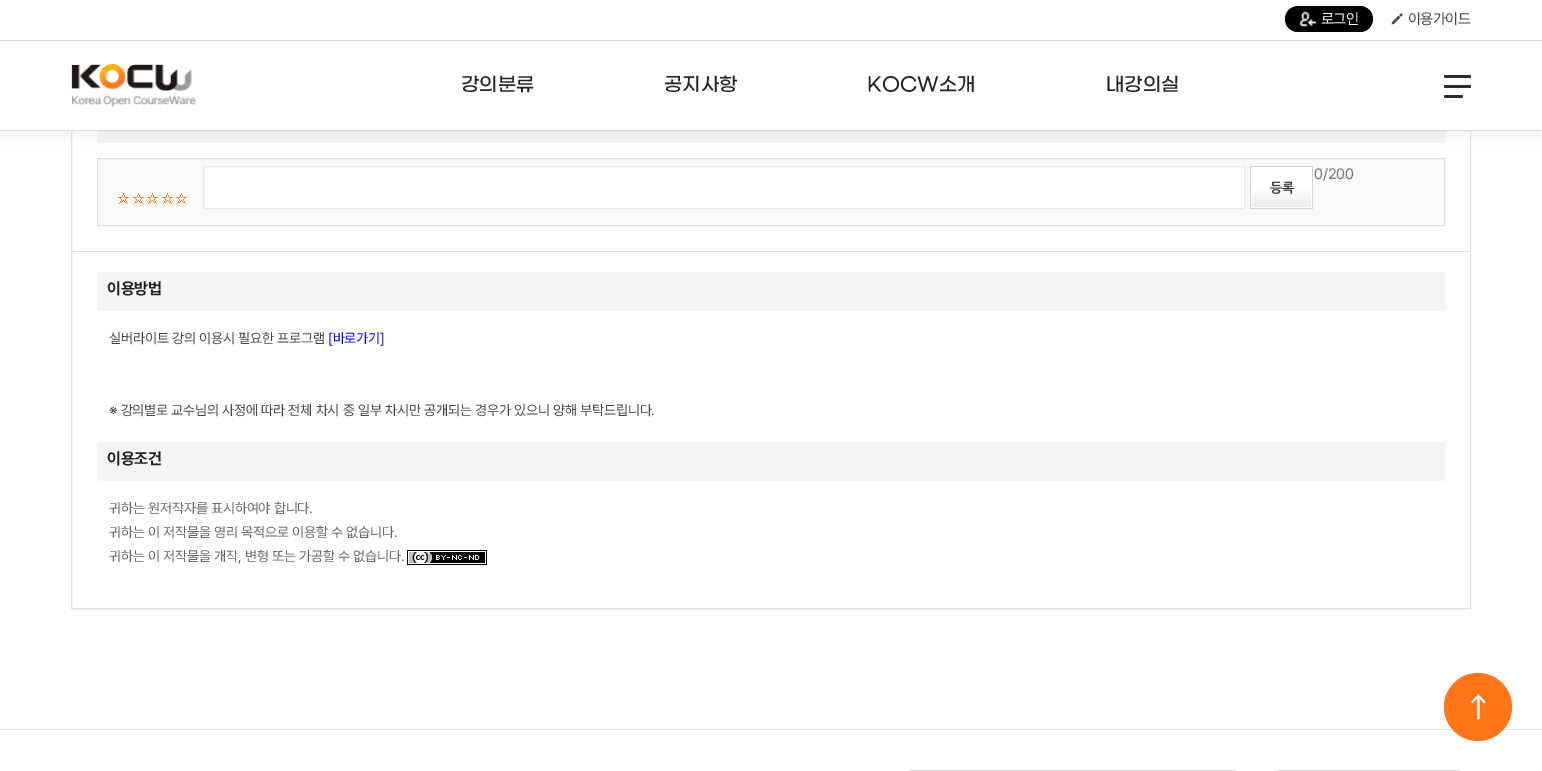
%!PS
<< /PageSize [1542 771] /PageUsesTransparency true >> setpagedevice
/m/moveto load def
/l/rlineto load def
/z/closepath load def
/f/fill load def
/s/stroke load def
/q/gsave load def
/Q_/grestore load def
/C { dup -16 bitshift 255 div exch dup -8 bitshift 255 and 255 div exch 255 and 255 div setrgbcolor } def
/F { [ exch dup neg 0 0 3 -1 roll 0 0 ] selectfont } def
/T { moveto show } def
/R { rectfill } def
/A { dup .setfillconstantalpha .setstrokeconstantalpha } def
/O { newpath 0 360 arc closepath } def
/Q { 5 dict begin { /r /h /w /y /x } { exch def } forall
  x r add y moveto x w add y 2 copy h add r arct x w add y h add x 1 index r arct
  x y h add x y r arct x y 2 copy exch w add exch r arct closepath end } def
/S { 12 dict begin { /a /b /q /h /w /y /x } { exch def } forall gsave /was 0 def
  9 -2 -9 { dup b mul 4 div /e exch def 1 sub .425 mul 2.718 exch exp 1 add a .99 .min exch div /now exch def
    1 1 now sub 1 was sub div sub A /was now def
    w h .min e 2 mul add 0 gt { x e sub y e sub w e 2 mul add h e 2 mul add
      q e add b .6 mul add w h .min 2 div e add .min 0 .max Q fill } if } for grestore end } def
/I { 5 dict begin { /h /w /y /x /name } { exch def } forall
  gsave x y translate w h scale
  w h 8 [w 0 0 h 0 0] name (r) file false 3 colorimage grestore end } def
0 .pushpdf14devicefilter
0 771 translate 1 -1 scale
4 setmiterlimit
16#FFFFFF C
0 0 1542 771 R
16#E1E1E1 C
71.5 -.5 1399 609 rectstroke
16#F5F5F5 C
97 131 1348 12 R
16#716D69 C
-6 1 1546 134 0 6 .1 S
16#FFFFFF C
0 0 1542 130 R
16#000000 C
1285 6 88 26 13 Q f
(1.rgb) 1299 11 17 16 I
/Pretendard-Regular 15 F
16#FFFFFF C
1321 24 m -.5 0 (로그인) ashow
(2.rgb) 1391 13 12 12 I
16#444444 C
1408 24 m -.5 0 (이용가이드) ashow
16#DADADA C
0 40 1542 1 R
(3.rgb) 71 64 125 43 I
/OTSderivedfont-Medium 19 F
16#222222 C
(강의분류) 461 90 T
(공지사항) 664 90 T
(KOCW소개) 867 90 T
(내강의실) 1106 90 T
16#DADADA C
0 130 1542 1 R
16#2D2D2D C
1444 85 27 3 1.5 Q f
1444 75 27 3 1.5 Q f
1444 95 19 3 1.5 Q f
16#F9F9F9 C
97.5 158.5 m 1347 0 l 0 67 l -1347 0 l z q f Q_
16#DEDEDE C
s
16#FFFFFF C
203.5 166.5 m 1041 0 l 0 42 l -1041 0 l z q f Q_
16#EAEAEA C
s
(4.rgb) 1250 166 63 43 I
/Pretendard-Regular 15 F
16#747474 C
1314 179 m -.2 0 (0/200) ashow
(5.rgb) 118 193 11 11 I
(5.rgb) 133 193 11 11 I
(5.rgb) 147 193 11 11 I
(5.rgb) 162 193 11 11 I
(5.rgb) 176 193 11 11 I
16#E1E1E1 C
72 251 1398 1 R
16#F5F5F5 C
97 272 1348 39 R
/Pretendard-Bold 16 F
16#222222 C
107 294 m -.2 0 (이용방법) ashow
/Pretendard-Regular 14 F
16#444444 C
109 343 m -.2 0 (실버라이트 강의 이용시 필요한 프로그램) ashow
16#0000FF C
328 343 m -.2 0 ([바로가기]) ashow
16#444444 C
109 415 m -.2 0 (※ 강의별로 교수님의 사정에 따라 전체 차시 중 일부 차시만 공개되는 경우가 있으니 양해 부탁드립니다.) ashow
16#F5F5F5 C
97 442 1348 39 R
/Pretendard-Bold 16 F
16#222222 C
107 464 m -.2 0 (이용조건) ashow
/Pretendard-Regular 14 F
16#666666 C
109 513 m -.2 0 (귀하는 원저작자를 표시하여야 합니다.) ashow
109 537 m -.2 0 (귀하는 이 저작물을 영리 목적으로 이용할 수 없습니다.) ashow
109 561 m -.2 0 (귀하는 이 저작물을 개작, 변형 또는 가공할 수 없습니다.) ashow
(6.rgb) 407 550 80 15 I
16#E3E3E3 C
0 729 1542 1 R
16#FF7518 C
1478 707 34 O f
(7.rgb) 1471 694 15 26 I
16#CFCFCF C
898.5 770.5 348 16 14.5 Q s
1267.5 770.5 203 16 14.5 Q s
.poppdf14devicefilter showpage
